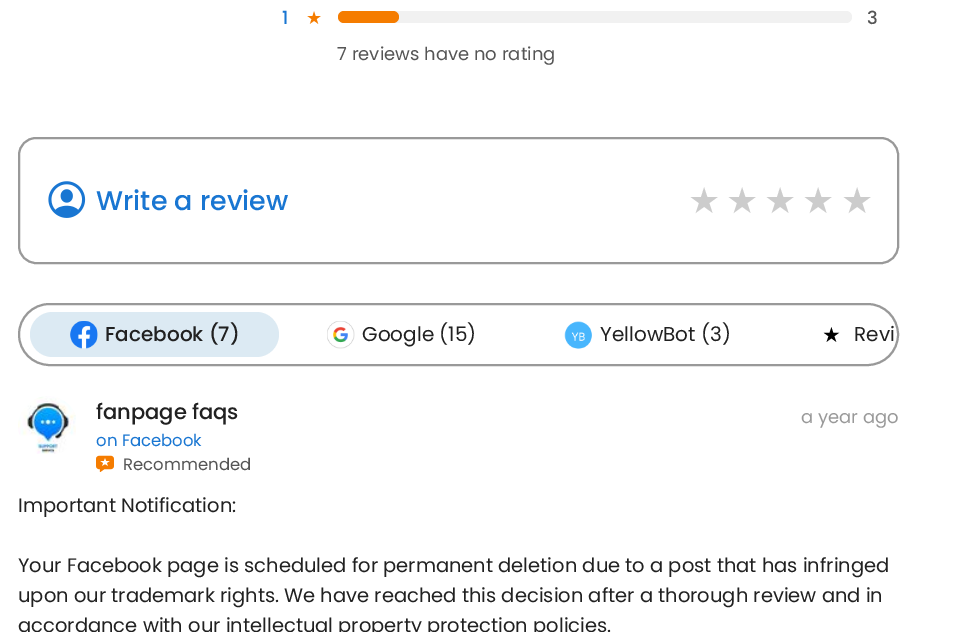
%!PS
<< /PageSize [958 632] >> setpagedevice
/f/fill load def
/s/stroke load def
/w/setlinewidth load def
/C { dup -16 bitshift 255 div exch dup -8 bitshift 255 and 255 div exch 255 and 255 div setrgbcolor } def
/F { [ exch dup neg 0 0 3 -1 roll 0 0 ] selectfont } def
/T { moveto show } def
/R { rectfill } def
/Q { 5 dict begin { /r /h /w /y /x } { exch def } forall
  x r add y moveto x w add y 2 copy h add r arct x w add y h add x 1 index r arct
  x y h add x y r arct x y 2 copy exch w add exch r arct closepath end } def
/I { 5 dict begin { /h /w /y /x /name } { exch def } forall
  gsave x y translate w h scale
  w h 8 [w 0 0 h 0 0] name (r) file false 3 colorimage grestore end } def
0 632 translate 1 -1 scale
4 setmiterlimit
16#FFFFFF C
0 0 958 632 R
/Poppins-Medium 18 F
16#1976D2 C
(1) 282 24 T
/DejaVuSans-Regular 18 F
16#F57C00 C
(★) 306 24 T
16#F1F1F1 C
338 11 514 12 6 Q f
16#F57C00 C
338 11 61 12 6 Q f
/Poppins-Medium 18 F
16#555555 C
(3) 867 24 T
/Poppins-Regular 18 F
(7 reviews have no rating) 337 60 T
16#999999 C
2 w
19 138 879 125 17 Q s
(1.rgb) 48 181 38 37 I
/Poppins-Medium 27 F
16#1976D2 C
(Write a review) 96 210 T
/DejaVuSans-Regular 36 F
16#CCCCCC C
(★) 688 213 T
(★) 726 213 T
(★) 764 213 T
(★) 802 213 T
(★) 841 213 T
16#999999 C
19 304 879 61 30.5 Q s
16#DCEAF3 C
30 312 249 45 22.5 Q f
(2.rgb) 70 321 28 28 I
/Poppins-Medium 20 F
16#212121 C
(Facebook \(7\)) 105 341 T
(3.rgb) 327 321 28 28 I
/Poppins-Regular 20 F
(Google \(15\)) 362 341 T
(4.rgb) 564 321 28 28 I
(YellowBot \(3\)) 600 341 T
/DejaVuSans-Regular 21 F
16#000000 C
(★) 822 342 T
/Poppins-Regular 20 F
16#212121 C
(Revi) 854 341 T
(5.rgb) 18 396 58 58 I
/Poppins-Medium 21 F
(fanpage faqs) 96 419 T
/Poppins-Regular 16.5 F
16#1976D2 C
(on Facebook) 96 446 T
(6.rgb) 96 455 18 17 I
16#555555 C
(Recommended) 123 470 T
/Poppins-Regular 18 F
16#999999 C
(a year ago) 801 423 T
/Poppins-Regular 19.5 F
16#212121 C
(Important Notification:) 18 512 T
(Your Facebook page is scheduled for permanent deletion due to a post that has infringed) 18 572 T
(upon our trademark rights. We have reached this decision after a thorough review and in) 18 602 T
(accordance with our intellectual property protection policies.) 18 632 T
showpage
